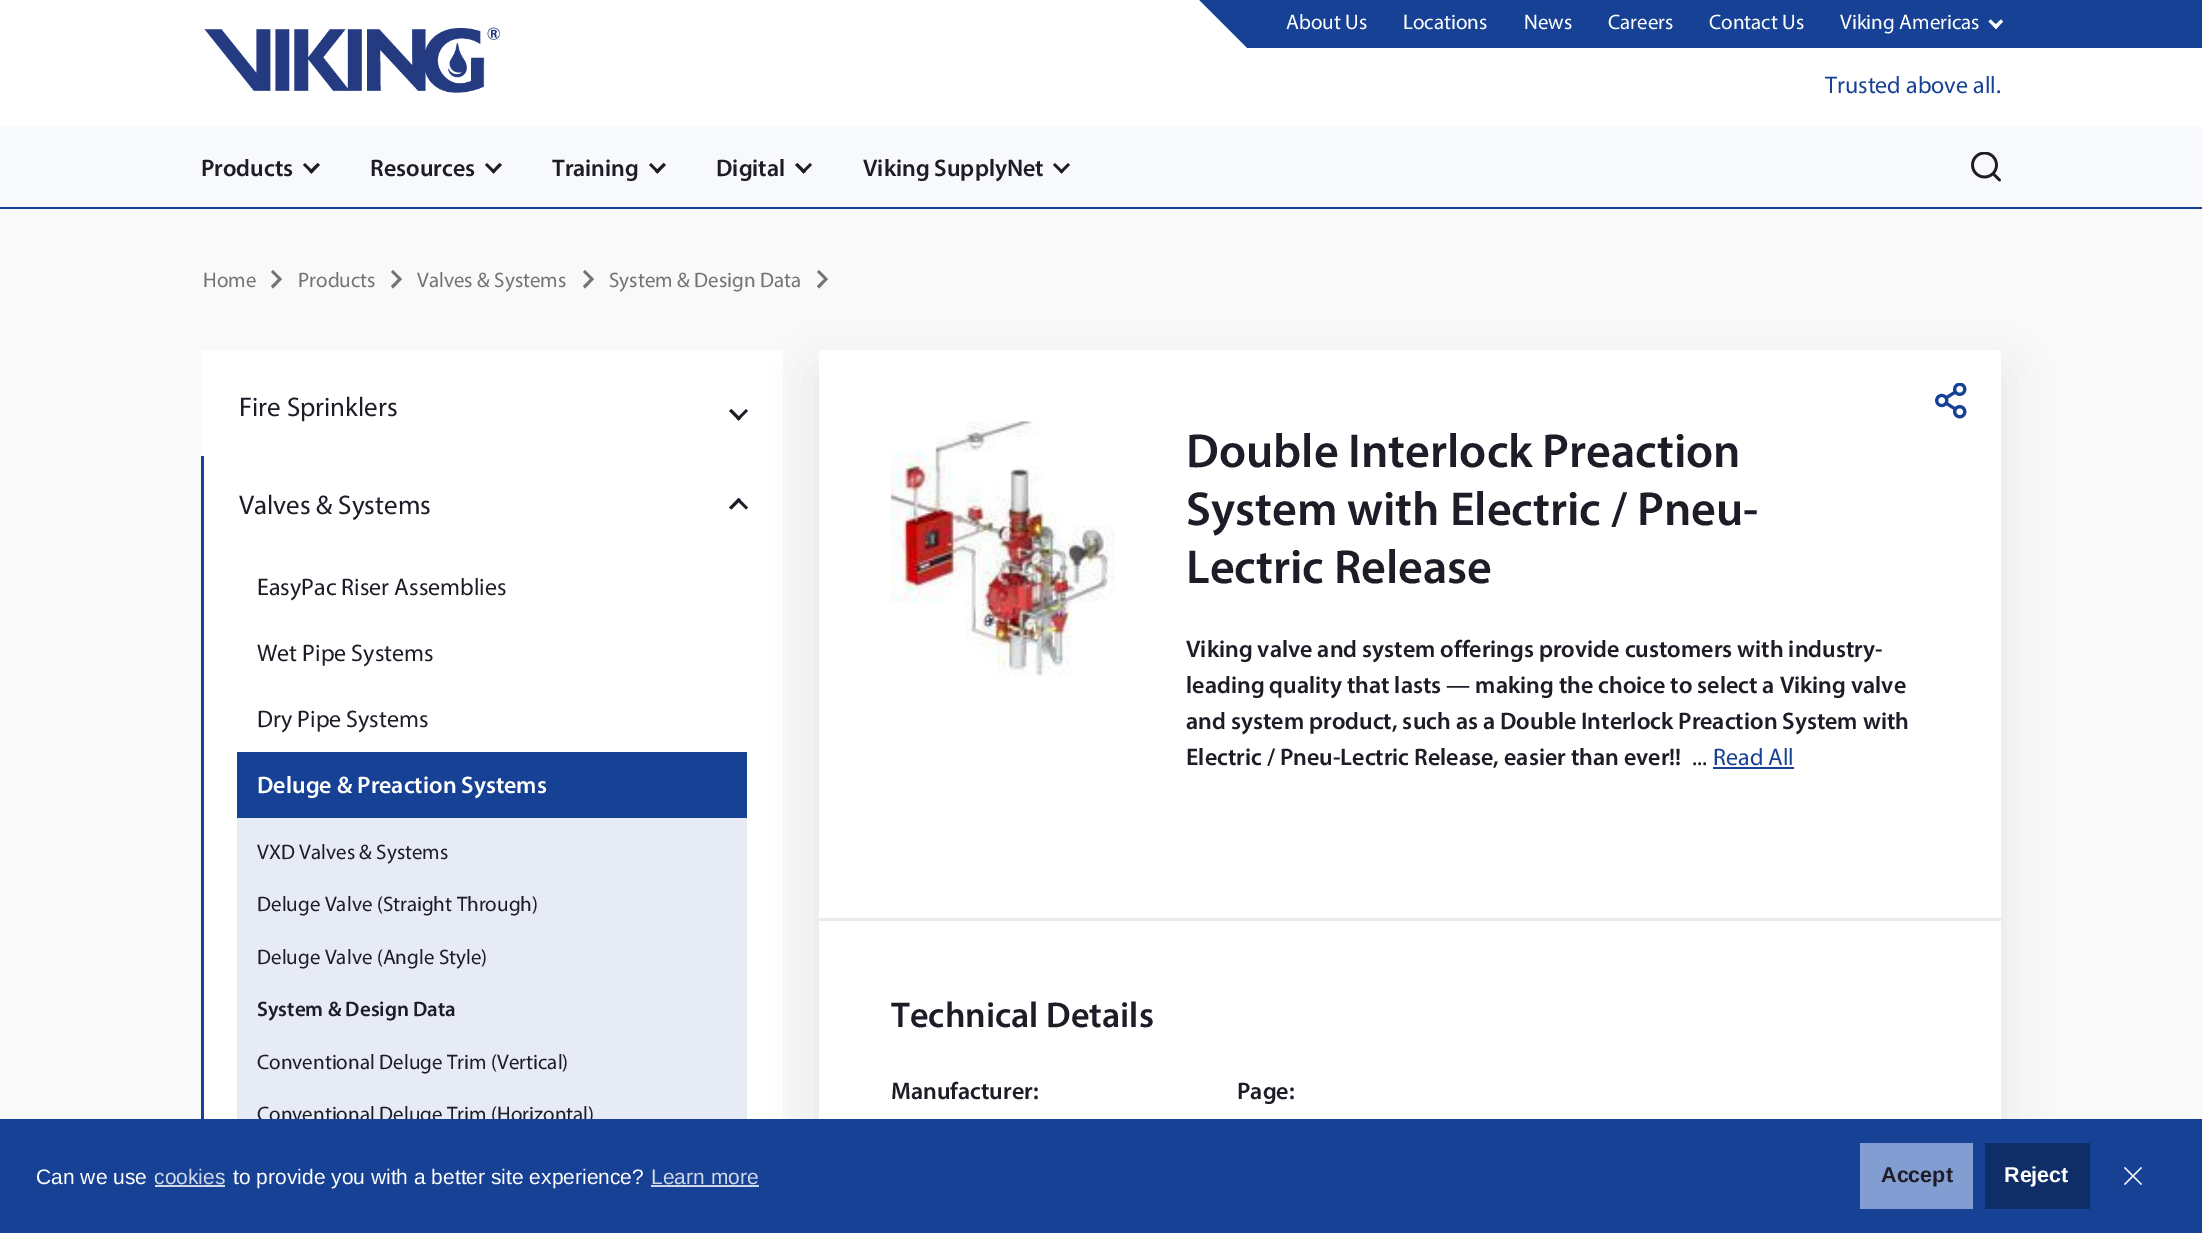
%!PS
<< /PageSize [2202 1233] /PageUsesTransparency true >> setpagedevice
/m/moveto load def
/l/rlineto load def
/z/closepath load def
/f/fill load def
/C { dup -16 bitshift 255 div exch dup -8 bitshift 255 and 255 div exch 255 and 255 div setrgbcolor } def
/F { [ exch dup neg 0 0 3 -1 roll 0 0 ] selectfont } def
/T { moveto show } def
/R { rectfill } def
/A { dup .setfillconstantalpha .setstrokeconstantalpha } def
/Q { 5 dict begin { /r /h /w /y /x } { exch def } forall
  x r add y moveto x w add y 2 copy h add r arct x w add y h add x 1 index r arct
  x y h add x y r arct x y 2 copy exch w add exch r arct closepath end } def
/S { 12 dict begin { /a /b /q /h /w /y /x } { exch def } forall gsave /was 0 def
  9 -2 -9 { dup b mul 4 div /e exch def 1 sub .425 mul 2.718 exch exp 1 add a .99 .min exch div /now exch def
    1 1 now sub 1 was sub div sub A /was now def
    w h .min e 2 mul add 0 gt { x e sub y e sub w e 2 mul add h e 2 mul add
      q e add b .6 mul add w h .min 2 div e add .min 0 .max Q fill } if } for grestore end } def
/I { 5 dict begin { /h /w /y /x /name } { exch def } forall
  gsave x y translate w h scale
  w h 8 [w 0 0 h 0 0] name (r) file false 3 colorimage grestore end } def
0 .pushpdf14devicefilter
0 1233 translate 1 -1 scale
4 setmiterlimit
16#F9F9F9 C
0 0 2202 1233 R
16#FFFFFF C
0 0 2202 126 R
16#164194 C
0 207 2202 2 R
1199 0 1003 48 R
16#FFFFFF C
1196 -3 m 51 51 l -51 51 l -51 -51 l z f
/Myriad-Regular 21 F
(About Us) 1286 29 T
(Locations) 1403 29 T
(News) 1524 29 T
(Careers) 1608 29 T
(Contact Us) 1709 29 T
(Viking Americas) 1840 29 T
2003 21.5 m -7 7.5 l -2.5 -2.5 l 7.5 -7 l z f
1998 26.5 m -2 2.5 l -7.5 -7.5 l 2 -2 l z f
/Myriad-Regular 24 F
16#164194 C
(Trusted above all.) 1825 93 T
16#F7F9FC C
0 126 2202 81 R
/Myriad-SemiBold 24 F
16#1E1D27 C
(Products) 201 176 T
320 165 m -8.5 8.5 l -2.5 -2 l 8.5 -8.5 l z f
313.5 171.5 m -2 2 l -8.5 -8.5 l 2 -2 l z f
(Resources) 370 176 T
502 165 m -8.5 8.5 l -2 -2 l 8 -8.5 l z f
495.5 171.5 m -2 2 l -8.5 -8.5 l 2 -2 l z f
(Training) 552 176 T
666 165 m -8.5 8.5 l -2.5 -2 l 8.5 -8.5 l z f
659.5 171.5 m -2 2 l -8.5 -8.5 l 2 -2 l z f
(Digital) 716 176 T
812 165 m -8.5 8.5 l -2 -2 l 8.5 -8.5 l z f
806 171.5 m -2.5 2 l -8.5 -8.5 l 2.5 -2 l z f
(Viking SupplyNet) 863 176 T
1070 165 m -8.5 8.5 l -2 -2 l 8.5 -8.5 l z f
1063.5 171.5 m -2 2 l -8.5 -8.5 l 2 -2 l z f
(1.rgb) 1971 152 30 30 I
(2.rgb) 204 27 296 66 I
/Myriad-Regular 21 F
16#737373 C
(Home) 203 287 T
271 272 m 2 -2 l 9 9 l -9 9.5 l -2 -2.5 l 7 -7 l z f
(Products) 298 287 T
391 272 m 2 -2 l 9 9 l -9 9.5 l -2 -2.5 l 7 -7 l z f
(Valves & Systems) 417 287 T
583 272 m 2 -2 l 9 9 l -9 9.5 l -2 -2.5 l 7 -7 l z f
(System & Design Data) 609 287 T
817 272 m 2 -2 l 9 9 l -9 9.5 l -2 -2.5 l 7 -7 l z f
16#FFFFFF C
201 350 582 769 R
/Myriad-Regular 27 F
16#1E1D27 C
(Fire Sprinklers) 239 416 T
748 411 m -9.5 9.5 l -2 -2 l 9.5 -9.5 l z f
741 418.5 m -2.5 2 l -9.5 -9.5 l 2.5 -2 l z f
16#164194 C
201 456 3 663 R
16#1E1D27 C
(Valves & Systems) 239 514 T
729 507.5 m 9.5 -9.5 l 2.5 2 l -9.5 9.5 l z f
736.5 500 m 2 -2 l 9.5 9.5 l -2 2 l z f
/Myriad-Regular 24 F
(EasyPac Riser Assemblies) 257 595 T
(Wet Pipe Systems) 257 661 T
(Dry Pipe Systems) 257 727 T
16#164194 C
237 752 510 66 R
/Myriad-SemiBold 24 F
16#FFFFFF C
(Deluge & Preaction Systems) 257 793 T
16#E6EBF5 C
237 818 510 301 R
/Myriad-Regular 21 F
16#1E1D27 C
(VXD Valves & Systems) 257 859 T
(Deluge Valve \(Straight Through\)) 257 911 T
(Deluge Valve \(Angle Style\)) 257 964 T
/Myriad-SemiBold 21 F
(System & Design Data) 257 1016 T
/Myriad-Regular 21 F
(Conventional Deluge Trim \(Vertical\)) 257 1069 T
(Conventional Deluge Trim \(Horizontal\)) 257 1121 T
16#000000 C
819 374 1182 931 0 24 .08 S
16#FFFFFF C
819 350 1182 769 R
(3.rgb) 1935 383 32 36 I
(4.rgb) 891 421 224 256 I
/Myriad-SemiBold 48 F
16#1E1D27 C
(Double Interlock Preaction) 1186 467 T
(System with Electric / Pneu-) 1186 525 T
(Lectric Release) 1186 583 T
/Myriad-SemiBold 24 F
(Viking valve and system offerings provide customers with industry-) 1186 657 T
(leading quality that lasts — making the choice to select a Viking valve) 1186 693 T
(and system product, such as a Double Interlock Preaction System with) 1186 729 T
(Electric / Pneu-Lectric Release, easier than ever!!) 1186 765 T
/Myriad-Regular 24 F
(...) 1692 765 T
16#164194 C
(Read All) 1713 765 T
1713 767 81 2 R
16#EAEAEA C
819 918 1182 3 R
/Myriad-SemiBold 36 F
16#1E1D27 C
(Technical Details) 891 1027 T
/Myriad-SemiBold 24 F
(Manufacturer:) 891 1099 T
(Page:) 1237 1099 T
16#164194 C
0 1119 2202 114 R
/LiberationSans-Regular 21 F
16#FFFFFF C
(Can we use) 36 1184 T
16#D0D9EA C
(cookies) 154 1184 T
155 1185 70 2 R
16#FFFFFF C
(to provide you with a better site experience?) 233 1184 T
16#D0D9EA C
(Learn more) 651 1184 T
651 1185 108 2 R
16#829DD1 C
1860 1143 113 66 R
/LiberationSans-Bold 21.5 F
16#1E1D27 C
(Accept) 1881 1182 T
16#0F2E68 C
1985 1143 105 66 R
16#FFFFFF C
(Reject) 2004 1182 T
2141 1167 m 1 1 l -17 17 l -1 -1 l z f
2124 1168 m 1 -1 l 17 17 l -1 1 l z f
.poppdf14devicefilter showpage
